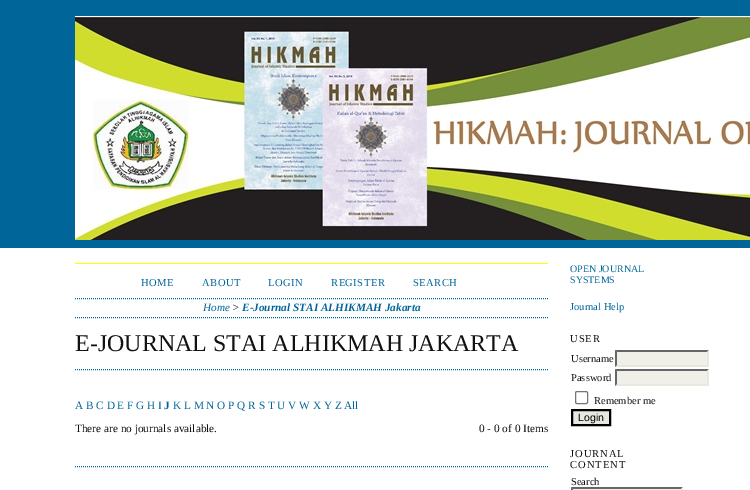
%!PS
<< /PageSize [750 490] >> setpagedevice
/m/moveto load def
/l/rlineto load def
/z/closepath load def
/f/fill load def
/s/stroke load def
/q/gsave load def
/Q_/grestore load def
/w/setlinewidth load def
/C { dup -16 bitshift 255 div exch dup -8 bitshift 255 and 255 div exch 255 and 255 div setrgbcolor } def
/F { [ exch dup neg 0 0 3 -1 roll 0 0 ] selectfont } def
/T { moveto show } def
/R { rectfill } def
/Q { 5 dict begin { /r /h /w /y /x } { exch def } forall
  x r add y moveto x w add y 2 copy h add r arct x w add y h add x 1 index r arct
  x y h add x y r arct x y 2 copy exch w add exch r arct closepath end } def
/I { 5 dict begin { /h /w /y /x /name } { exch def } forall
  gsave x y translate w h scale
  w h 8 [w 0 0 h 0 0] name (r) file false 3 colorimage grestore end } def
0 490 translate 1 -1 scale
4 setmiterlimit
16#FFFFFF C
0 0 750 490 R
16#006699 C
0 0 750 248 R
(1.rgb) 75 16 675 224 I
16#FFFF00 C
75 263 473 1 R
16#006699 C
[1 1] 0 setdash
75 466.5 m 473 0 l s
75 298.5 m 473 0 l s
/LiberationSerif-Regular 10.5 F
141 286 m .5 0 (HOME) ashow
202 286 m .5 0 (ABOUT) ashow
268 286 m .5 0 (LOGIN) ashow
331 286 m .5 0 (REGISTER) ashow
413 286 m .5 0 (SEARCH) ashow
75 317.5 m 473 0 l s
/LiberationSerif-Italic 11.25 F
(Home) 203 311 T
16#111111 C
(>) 232 311 T
/LiberationSerif-BoldItalic 11.25 F
16#006699 C
(E-Journal STAI ALHIKMAH Jakarta) 242 311 T
/LiberationSerif-Regular 24 F
16#111111 C
(E-JOURNAL STAI ALHIKMAH JAKARTA) 75 351 T
16#006699 C
75 369.5 m 473 0 l s
/LiberationSerif-Regular 11.25 F
(A B C D E F G H I) 75 409 T
/LiberationSerif-Bold 11.25 F
(J) 164 409 T
/LiberationSerif-Regular 11.25 F
(K L M N O P Q R S T U V W X Y Z All) 173 409 T
16#111111 C
(There are no journals available.) 75 432 T
(0 - 0 of 0 Items) 479 432 T
/LiberationSerif-Regular 10 F
16#006699 C
(OPEN JOURNAL) 570 272 T
(SYSTEMS) 570 283 T
/LiberationSerif-Regular 10.5 F
(Journal Help) 570 310 T
16#111111 C
570 342 m 1 0 (USER) ashow
(Username) 571 362 T
16#F0F0E8 C
615 350 94 17 R
16#666666 C
615 350 m 94 0 l -2 2 l -90 0 l z f
16#E8E8E1 C
709 350 m 0 17 l -2 -2 l 0 -13 l z f
709 367 m -94 0 l 2 -2 l 90 0 l z f
16#666666 C
615 367 m 0 -17 l 2 2 l 0 13 l z f
16#111111 C
(Password) 571 381 T
16#F0F0E8 C
615 369 94 17 R
16#666666 C
615 369 m 94 0 l -2 2 l -90 0 l z f
16#E8E8E1 C
709 369 m 0 17 l -2 -2 l 0 -13 l z f
709 386 m -94 0 l 2 -2 l 90 0 l z f
16#666666 C
615 386 m 0 -17 l 2 2 l 0 13 l z f
16#767676 C
[] 0 setdash
575.5 391.5 12 12 1.5 Q s
16#111111 C
(Remember me) 594 404 T
16#E8E8E1 C
572 410 m 38 0 l 0 15 l -38 0 l z q f Q_
16#000000 C
2 w
s
/LiberationSans-Regular 10.5 F
(Login) 578 421 T
/LiberationSerif-Regular 10.5 F
16#111111 C
570 457 m 1 0 (JOURNAL) ashow
570 468 m 1 0 (CONTENT) ashow
(Search) 571 485 T
16#F0F0E8 C
571 487 112 3 R
16#666666 C
571 487 m 112 0 l -2 2 l -108 0 l z f
16#E8E8E1 C
683 487 m 0 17 l -2 -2 l 0 -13 l z f
16#666666 C
571 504 m 0 -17 l 2 2 l 0 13 l z f
showpage
